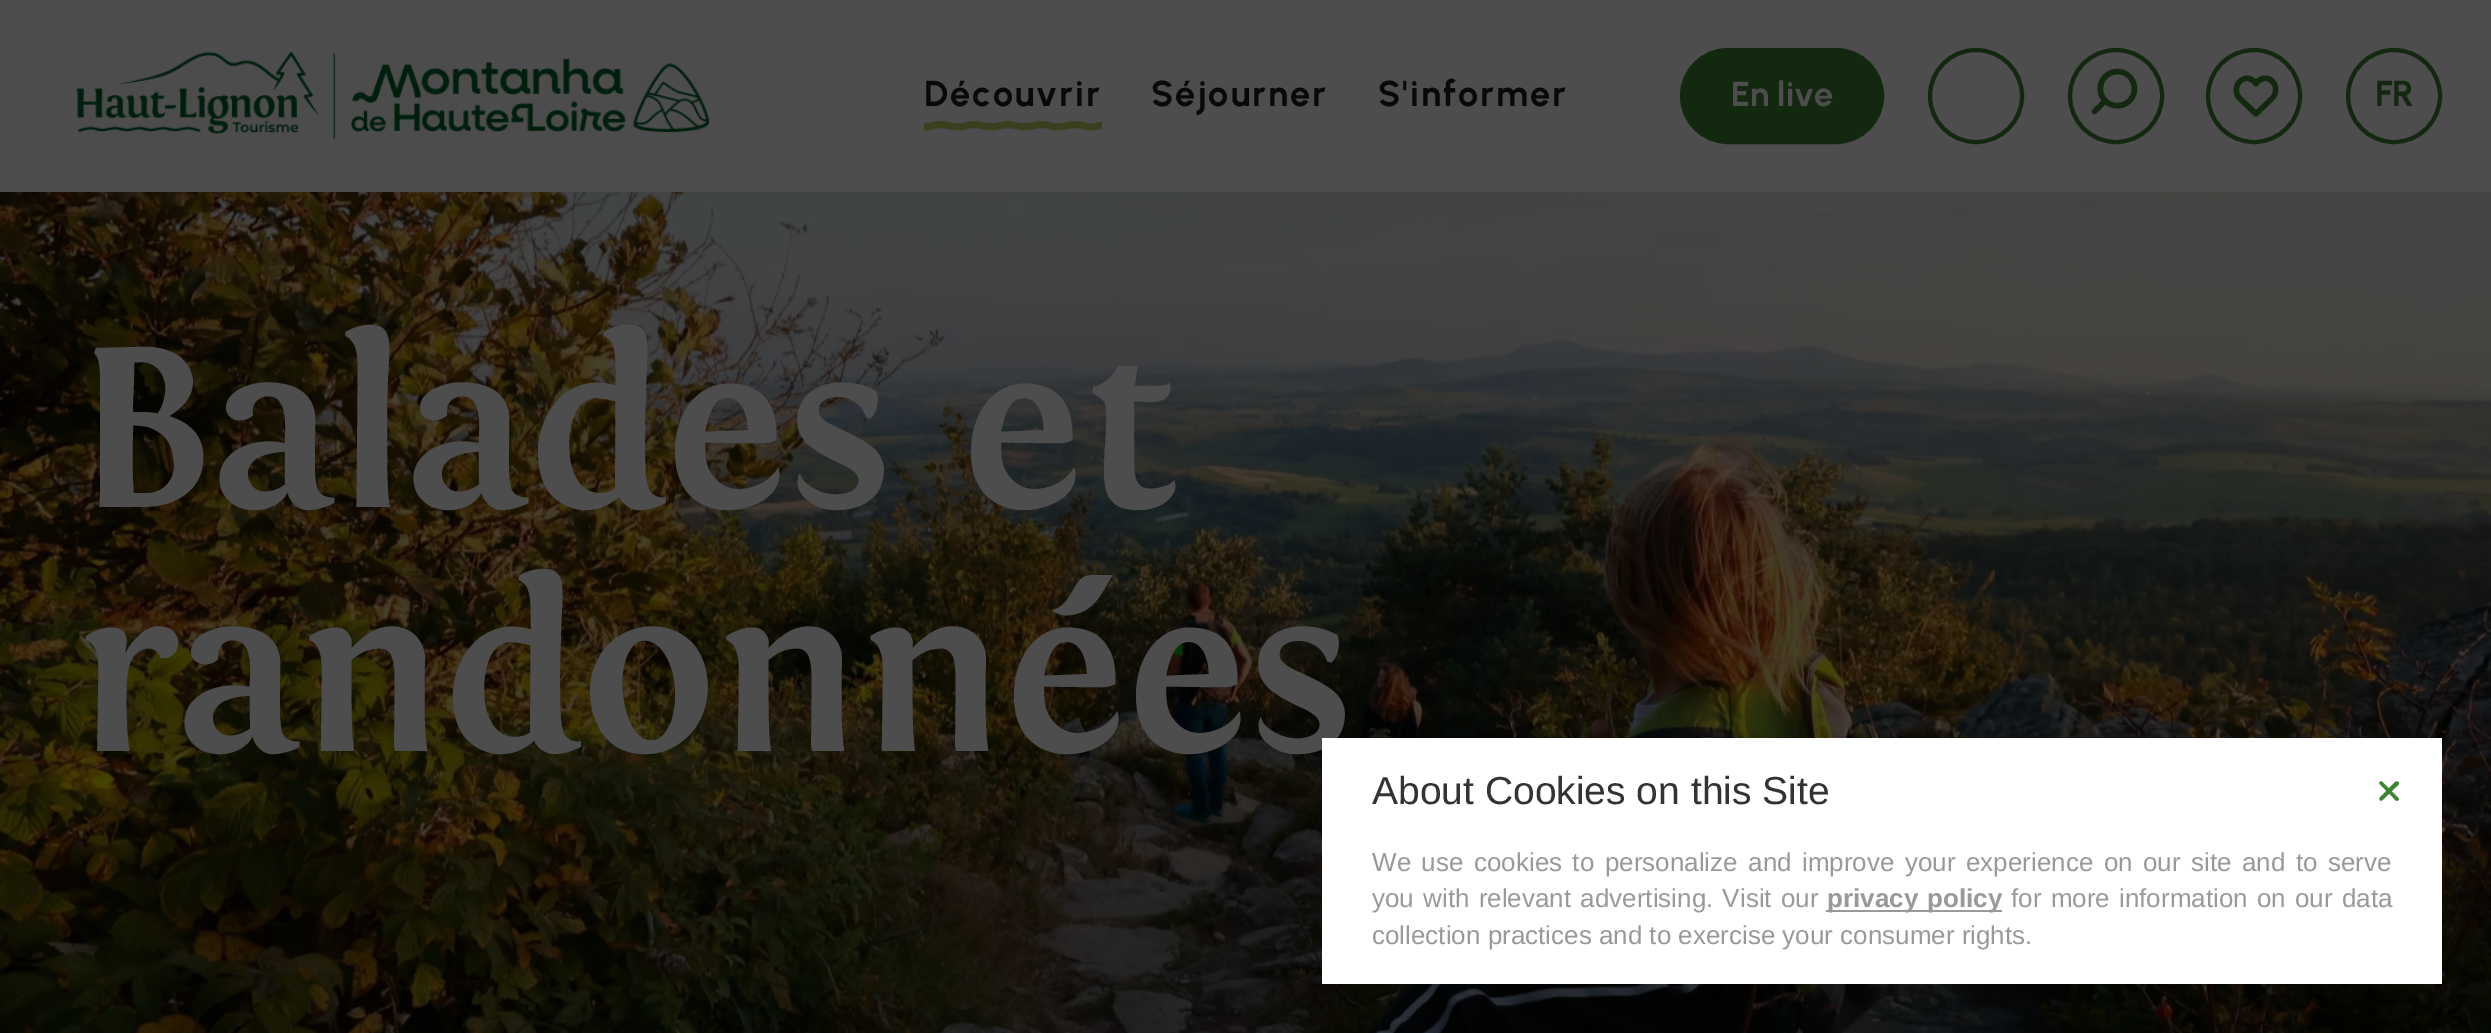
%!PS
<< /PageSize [2491 1033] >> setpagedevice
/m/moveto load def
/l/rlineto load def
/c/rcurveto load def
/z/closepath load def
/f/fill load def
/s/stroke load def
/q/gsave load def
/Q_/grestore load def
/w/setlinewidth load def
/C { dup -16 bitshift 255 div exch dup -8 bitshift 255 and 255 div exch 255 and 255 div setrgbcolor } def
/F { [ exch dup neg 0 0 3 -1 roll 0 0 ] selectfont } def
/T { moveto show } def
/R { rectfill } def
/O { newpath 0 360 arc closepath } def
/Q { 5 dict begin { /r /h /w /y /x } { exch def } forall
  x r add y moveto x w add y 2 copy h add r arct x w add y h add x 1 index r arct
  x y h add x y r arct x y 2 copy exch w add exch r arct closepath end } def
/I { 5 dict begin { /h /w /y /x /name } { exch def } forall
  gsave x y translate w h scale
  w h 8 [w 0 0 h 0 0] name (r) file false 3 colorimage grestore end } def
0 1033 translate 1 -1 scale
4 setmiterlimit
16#4D4D4D C
0 0 2491 1033 R
(1.rgb) 76 51 634 89 I
/Urbanist-Bold 36 F
16#080A07 C
924 106 m 2 0 (Découvrir) ashow
(2.rgb) 924 121 178 10 I
1151 106 m 2 0 (Séjourner) ashow
1378 106 m 2 0 (S'informer) ashow
16#12280F C
1682 50 200 92 46 Q q f Q_
4 w
s
/Urbanist-Bold 34.5 F
16#4D4D4D C
(En live) 1731 106 T
16#12280F C
1976 96 46 O s
2116 96 46 O s
(3.rgb) 2091 68 47 47 I
2254 96 46 O s
(4.rgb) 2233 75 46 42 I
2394 96 46 O s
/Urbanist-Bold 36 F
(FR) 2375 106 T
(5.rgb) 0 192 2491 841 I
/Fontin-Bold 240 F
16#4D4D4D C
(Balades et) 76 507 T
(randonnées) 76 751 T
16#FFFFFF C
1322 738 1120 246 R
/LiberationSans-Regular 39 F
16#333333 C
(About Cookies on this Site) 1372 804 T
16#3B8531 C
2382.5 782 m 16 16 l .5 1 l 0 .5 -.5 1 -1 1.5 c -2 1.5 -4 -2 -5 -3 c -13.5 -13.5 l -1 -2 1.5 -3.5 3 -2 c z f
2380 797.5 m 15.5 -16 l 1.5 0 l .5 0 1 0 1.5 .5 c 1.5 2.5 -2 4.5 -3 5.5 c -13.5 13 l -2 1 -3.5 -1.5 -2 -3 c z f
/LiberationSans-Regular 26 F
16#999999 C
1372 871 m 3.25 0 32 (We use cookies to personalize and improve your experience on our site and to serve) widthshow
1372 907 m 2 0 32 (you with relevant advertising. Visit our) widthshow
1826 910 176 2 R
/LiberationSans-Bold 26 F
1827 907 m 2 0 32 (privacy policy) widthshow
/LiberationSans-Regular 26 F
2011 907 m 2 0 32 (for more information on our data) widthshow
(collection practices and to exercise your consumer rights.) 1372 944 T
showpage
